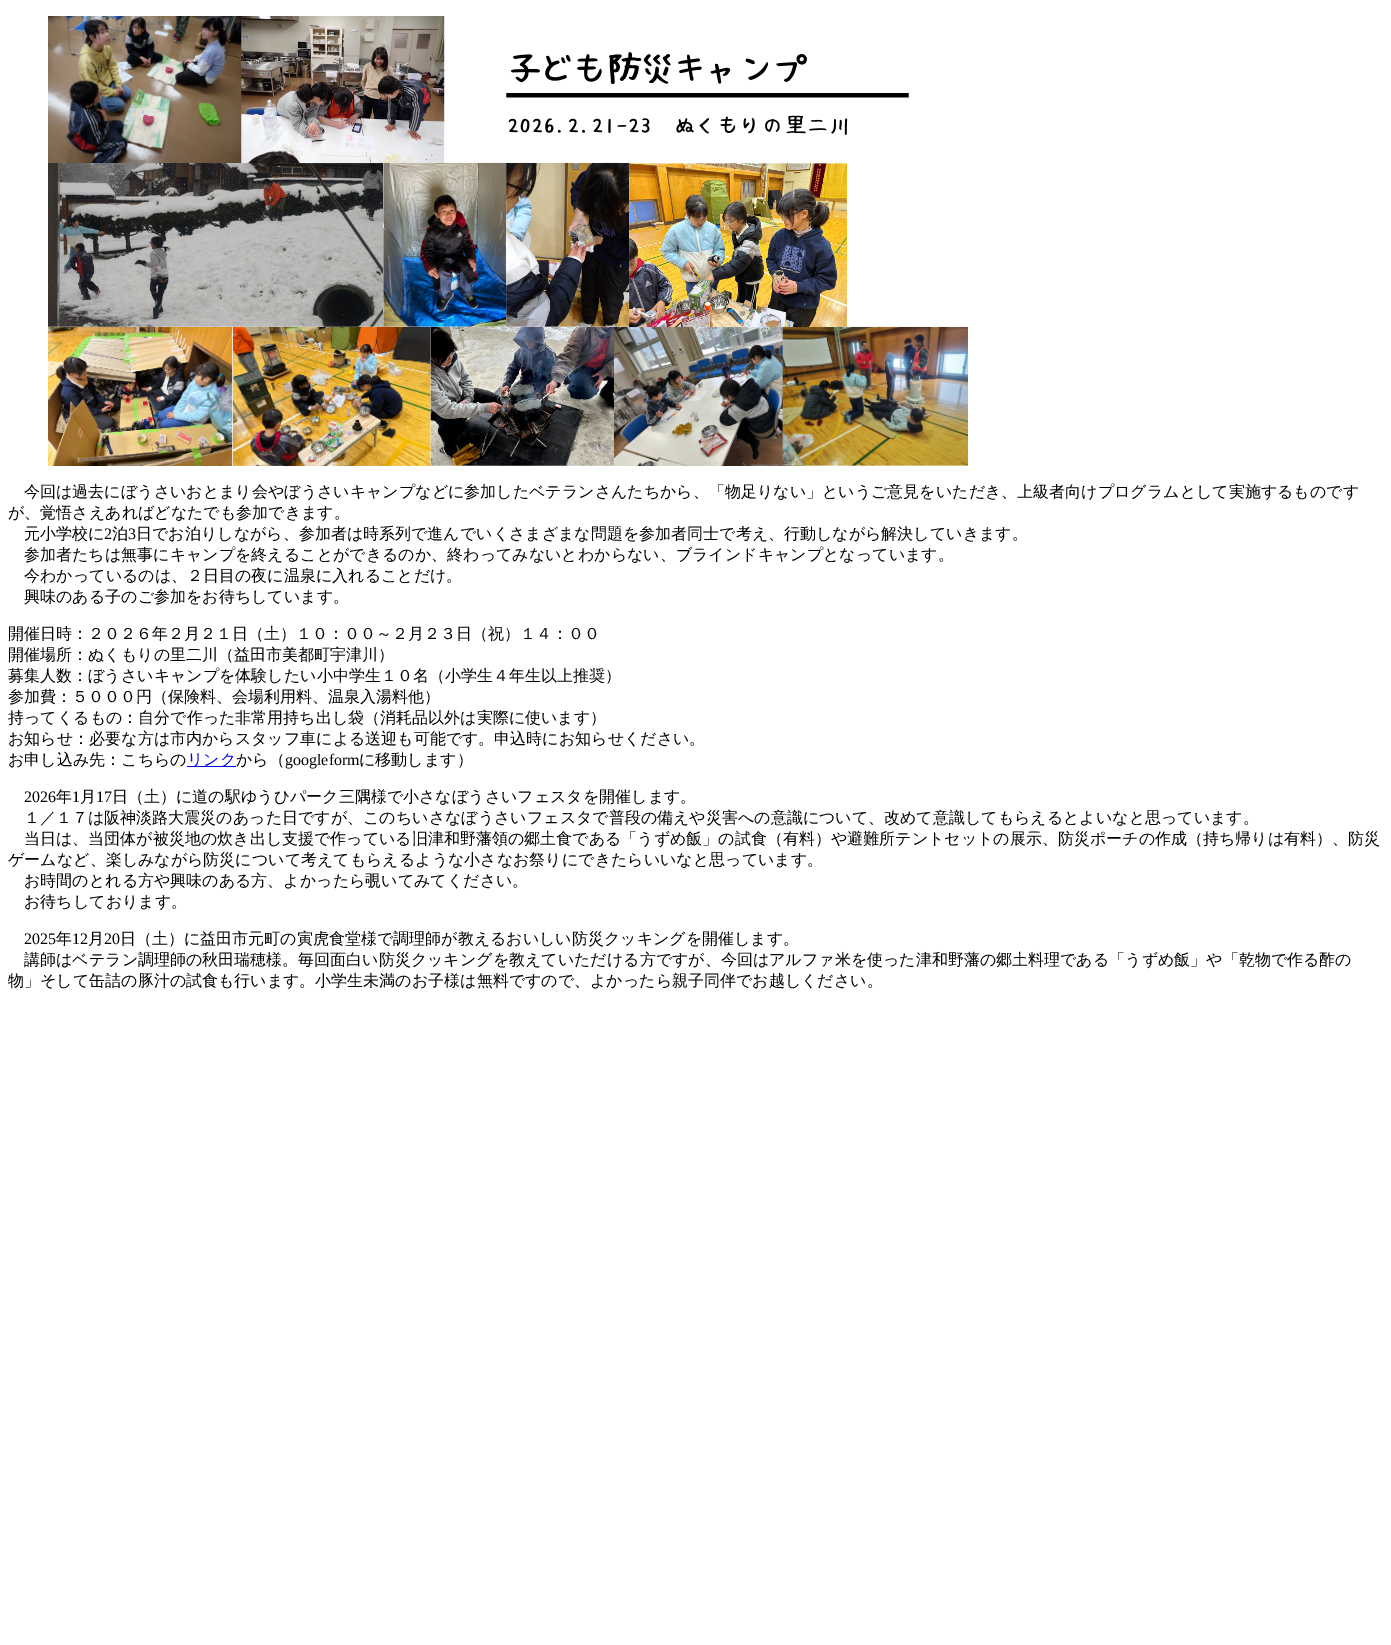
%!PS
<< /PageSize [1391 1645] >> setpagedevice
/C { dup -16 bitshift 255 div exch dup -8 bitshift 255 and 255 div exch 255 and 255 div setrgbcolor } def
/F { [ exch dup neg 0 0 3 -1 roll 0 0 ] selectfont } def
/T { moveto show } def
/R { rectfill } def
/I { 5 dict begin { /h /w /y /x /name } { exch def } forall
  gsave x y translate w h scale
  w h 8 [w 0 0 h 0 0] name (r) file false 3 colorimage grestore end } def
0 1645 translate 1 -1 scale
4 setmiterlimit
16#FFFFFF C
0 0 1391 1645 R
(1.rgb) 48 16 920 450 I
/WenQuanYiZenHei-Medium 16 F
16#000000 C
(今回は過去にぼうさいおとまり会やぼうさいキャンプなどに参加したベテランさんたちから、「物足りない」というご意見をいただき、上級者向けプログラムとして実施するものです) 24 497 T
(が、覚悟さえあればどなたでも参加できます。) 8 518 T
(元小学校に) 24 539 T
/LiberationSerif-Regular 16 F
(2) 104 539 T
/WenQuanYiZenHei-Medium 16 F
(泊) 112 539 T
/LiberationSerif-Regular 16 F
(3) 128 539 T
/WenQuanYiZenHei-Medium 16 F
(日でお泊りしながら、参加者は時系列で進んでいくさまざまな問題を参加者同士で考え、行動しながら解決していきます。) 136 539 T
(参加者たちは無事にキャンプを終えることができるのか、終わってみないとわからない、ブラインドキャンプとなっています。) 24 560 T
(今わかっているのは、２日目の夜に温泉に入れることだけ。) 24 581 T
(興味のある子のご参加をお待ちしています。) 24 602 T
(開催日時：２０２６年２月２１日（土）１０：００～２月２３日（祝）１４：００) 8 639 T
(開催場所：ぬくもりの里二川（益田市美都町宇津川）) 8 660 T
(募集人数：ぼうさいキャンプを体験したい小中学生１０名（小学生４年生以上推奨）) 8 681 T
(参加費：５０００円（保険料、会場利用料、温泉入湯料他）) 8 702 T
(持ってくるもの：自分で作った非常用持ち出し袋（消耗品以外は実際に使います）) 8 723 T
(お知らせ：必要な方は市内からスタッフ車による送迎も可能です。申込時にお知らせください。) 8 744 T
(お申し込み先：こちらの) 8 765 T
16#0000EE C
187 766 49 1 R
(リンク) 187 765 T
16#000000 C
(から（) 236 765 T
/LiberationSerif-Regular 16 F
(googleform) 285 765 T
/WenQuanYiZenHei-Medium 16 F
(に移動します）) 359 765 T
/LiberationSerif-Regular 16 F
(2026) 24 802 T
/WenQuanYiZenHei-Medium 16 F
(年) 56 802 T
/LiberationSerif-Regular 16 F
(1) 72 802 T
/WenQuanYiZenHei-Medium 16 F
(月) 80 802 T
/LiberationSerif-Regular 16 F
(17) 96 802 T
/WenQuanYiZenHei-Medium 16 F
(日（土）に道の駅ゆうひパーク三隅様で小さなぼうさいフェスタを開催します。) 112 802 T
(１／１７は阪神淡路大震災のあった日ですが、このちいさなぼうさいフェスタで普段の備えや災害への意識について、改めて意識してもらえるとよいなと思っています。) 24 823 T
(当日は、当団体が被災地の炊き出し支援で作っている旧津和野藩領の郷土食である「うずめ飯」の試食（有料）や避難所テントセットの展示、防災ポーチの作成（持ち帰りは有料）、防災) 24 844 T
(ゲームなど、楽しみながら防災について考えてもらえるような小さなお祭りにできたらいいなと思っています。) 8 865 T
(お時間のとれる方や興味のある方、よかったら覗いてみてください。) 24 886 T
(お待ちしております。) 24 907 T
/LiberationSerif-Regular 16 F
(2025) 24 944 T
/WenQuanYiZenHei-Medium 16 F
(年) 56 944 T
/LiberationSerif-Regular 16 F
(12) 72 944 T
/WenQuanYiZenHei-Medium 16 F
(月) 88 944 T
/LiberationSerif-Regular 16 F
(20) 104 944 T
/WenQuanYiZenHei-Medium 16 F
(日（土）に益田市元町の寅虎食堂様で調理師が教えるおいしい防災クッキングを開催します。) 120 944 T
(講師はベテラン調理師の秋田瑞穂様。毎回面白い防災クッキングを教えていただける方ですが、今回はアルファ米を使った津和野藩の郷土料理である「うずめ飯」や「乾物で作る酢の) 24 965 T
(物」そして缶詰の豚汁の試食も行います。小学生未満のお子様は無料ですので、よかったら親子同伴でお越しください。) 8 986 T
showpage
